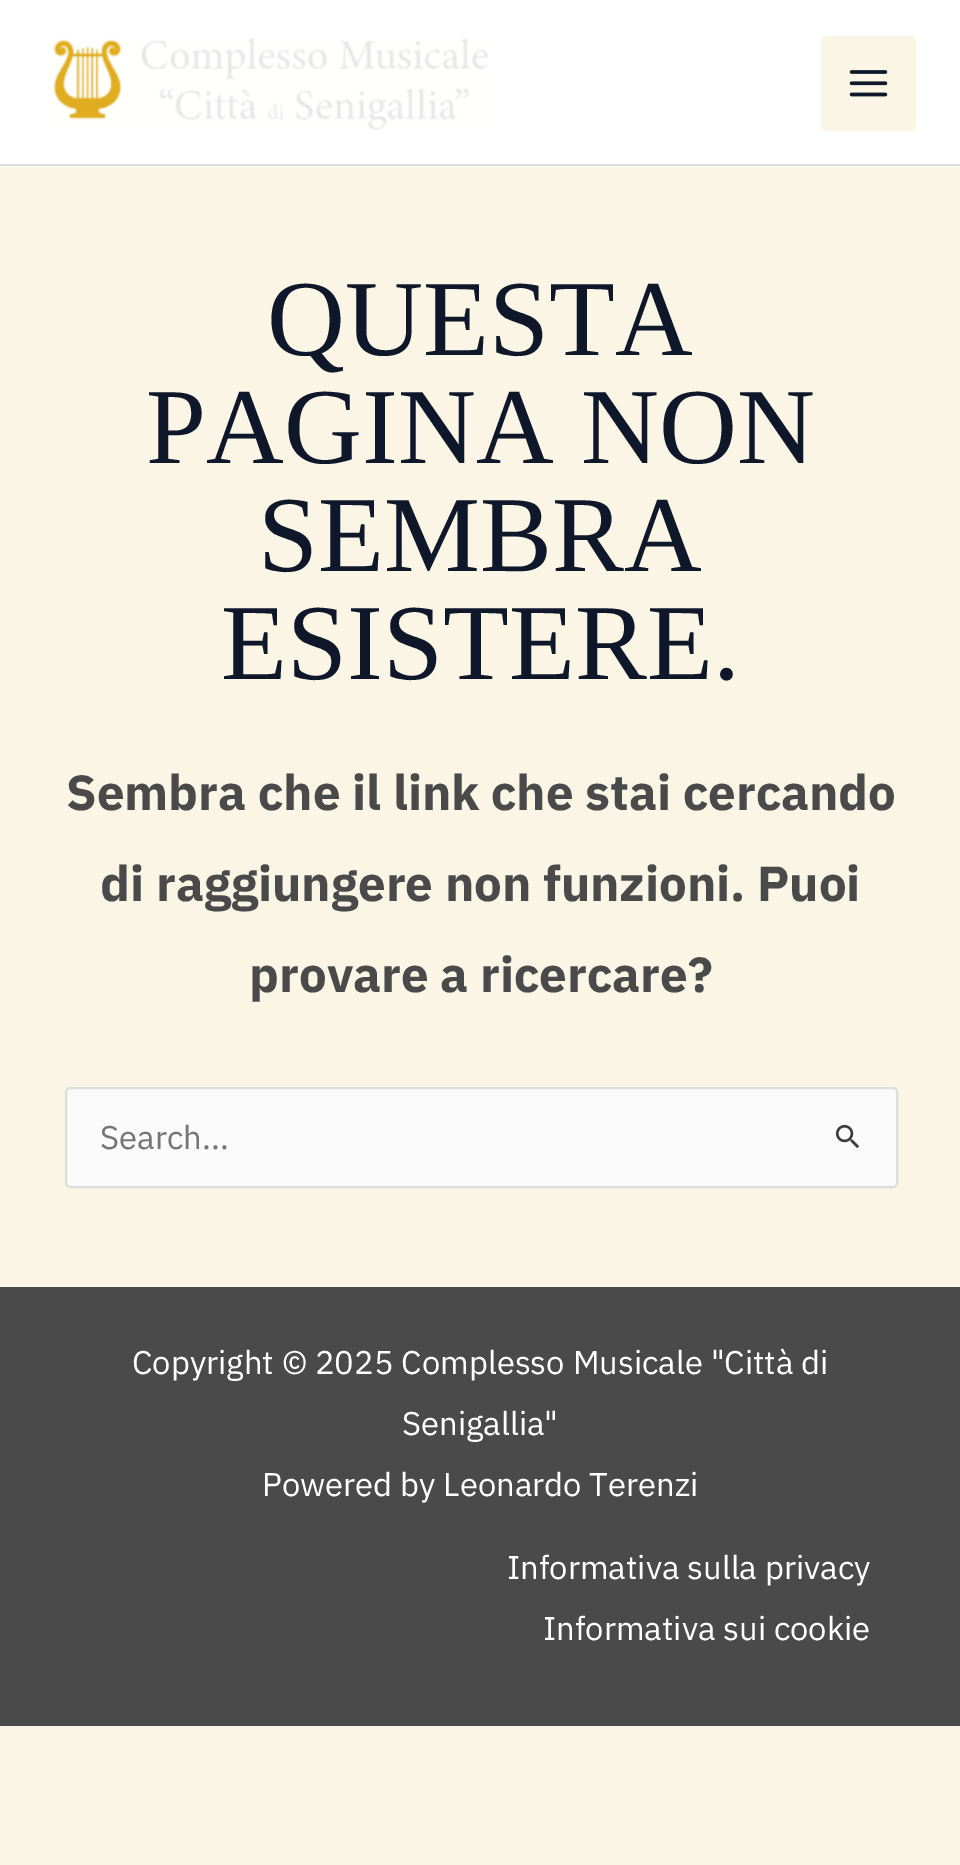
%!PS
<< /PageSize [960 1865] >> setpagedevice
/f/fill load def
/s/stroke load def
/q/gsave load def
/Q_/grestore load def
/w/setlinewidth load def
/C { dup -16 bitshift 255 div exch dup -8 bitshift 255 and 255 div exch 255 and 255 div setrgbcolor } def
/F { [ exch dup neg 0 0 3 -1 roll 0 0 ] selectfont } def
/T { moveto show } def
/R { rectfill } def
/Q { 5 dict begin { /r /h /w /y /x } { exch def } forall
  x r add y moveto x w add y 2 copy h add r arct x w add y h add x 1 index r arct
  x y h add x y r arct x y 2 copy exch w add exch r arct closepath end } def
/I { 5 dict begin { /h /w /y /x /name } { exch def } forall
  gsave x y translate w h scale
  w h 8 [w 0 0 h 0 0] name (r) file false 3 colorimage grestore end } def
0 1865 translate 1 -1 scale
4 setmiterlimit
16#FAF5E5 C
0 0 960 1865 R
16#FFFFFF C
0 0 960 167 R
16#DDDDDD C
0 164 960 2 R
(1.rgb) 53 38 435 93 I
16#FAF5E5 C
821 36 95 95 5 Q f
(2.rgb) 849 70 39 27 I
/LiberationSerif-Regular 108 F
16#0F172A C
(QUESTA) 267 355 T
(PAGINA NON) 146 463 T
(SEMBRA) 258 571 T
(ESISTERE.) 221 679 T
/IBMPlexSans-Bold 49.25 F
16#4A4A4A C
(Sembra che il link che stai cercando) 66 810 T
(di raggiungere non funzioni. Puoi) 100 901 T
(provare a ricercare?) 249 992 T
16#FAFAFA C
66 1088 831 99 4 Q q f Q_
16#DDDDDD C
2 w
s
/IBMPlexSans-Regular 32.8 F
16#757575 C
(Search...) 100 1149 T
(3.rgb) 835 1124 25 25 I
16#4A4A4A C
0 1287 960 439 R
16#FFFFFF C
(Copyright © 2025 Complesso Musicale "Città di) 132 1374 T
(Senigallia") 402 1435 T
(Powered by Leonardo Terenzi) 262 1496 T
(Informativa sulla privacy) 507 1579 T
(Informativa sui cookie) 543 1640 T
showpage
